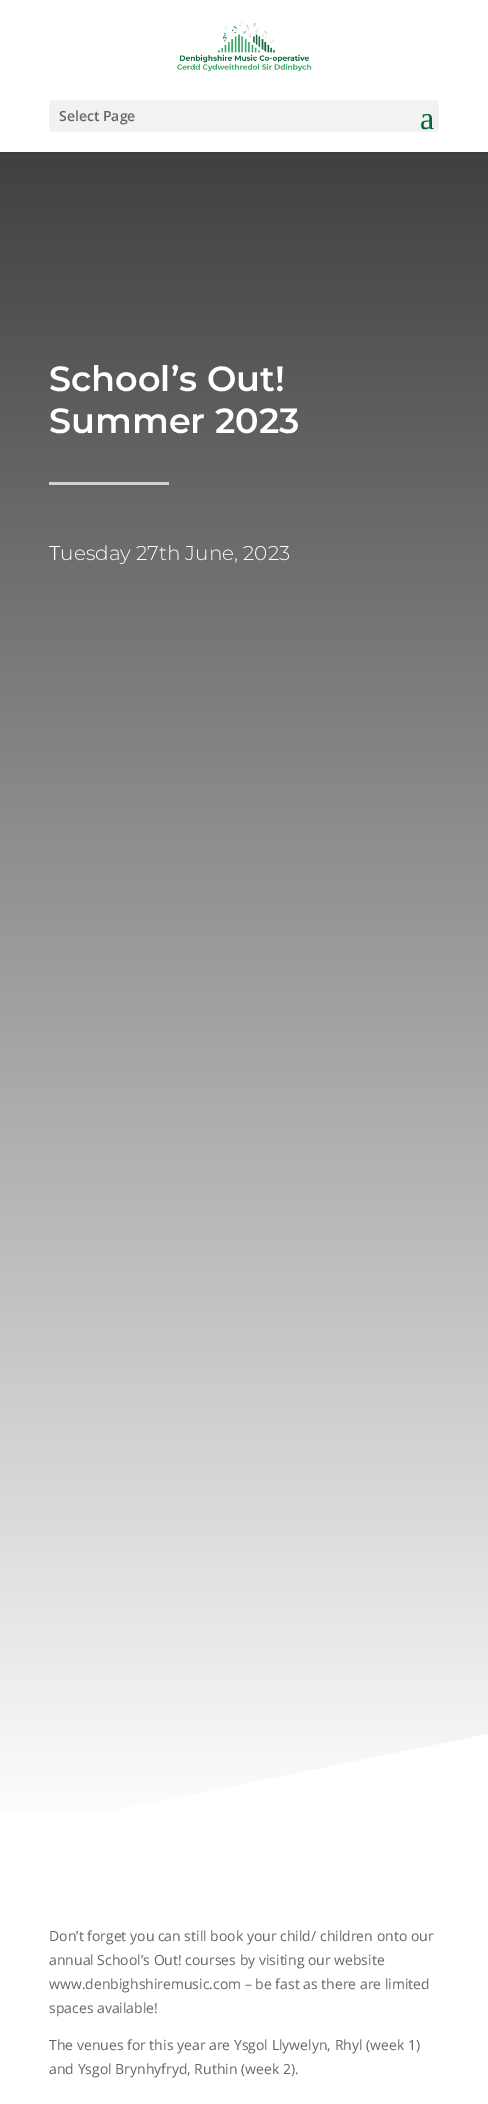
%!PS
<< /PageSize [488 2104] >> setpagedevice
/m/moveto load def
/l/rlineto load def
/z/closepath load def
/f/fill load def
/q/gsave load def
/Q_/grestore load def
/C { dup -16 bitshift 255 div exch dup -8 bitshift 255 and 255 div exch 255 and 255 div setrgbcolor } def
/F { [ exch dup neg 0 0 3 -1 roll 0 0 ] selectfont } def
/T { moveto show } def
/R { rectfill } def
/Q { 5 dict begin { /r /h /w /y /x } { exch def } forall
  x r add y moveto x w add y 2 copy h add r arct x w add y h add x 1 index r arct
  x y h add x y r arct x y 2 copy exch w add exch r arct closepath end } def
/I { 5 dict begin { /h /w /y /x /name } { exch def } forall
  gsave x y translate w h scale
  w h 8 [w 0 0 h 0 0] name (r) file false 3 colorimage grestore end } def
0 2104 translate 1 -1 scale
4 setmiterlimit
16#FFFFFF C
0 0 488 2104 R
16#3A3A3A C
0 152 488 1 R
(1.rgb) 177 21 135 51 I
16#F2F2F2 C
49 100 390 32 5 Q f
/OpenSans-SemiBold 14 F
16#666666 C
(Select Page) 59 121 T
/LiberationSerif-Regular 32 F
16#006738 C
(a) 420 129 T
q 0 153 m 488 0 l 0 1659 l -488 0 l z clip newpath
<< /ShadingType 2 /ColorSpace /DeviceRGB /Coords [244 151 244 1834] /Extend [true true] /Function << /FunctionType 2 /Domain [0 1] /C0 [.251 .251 .251] /C1 [1 1 1] /N 1 >> >> shfill Q_
/Montserrat-Thin 35 F
16#FFFFFF C
(School’s Out!) 49 391 T
(Summer 2023) 49 433 T
16#D1D1D1 C
49 482 120 3 R
/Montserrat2-Thin 20 F
16#FFFFFF C
(Tuesday 27th June, 2023) 49 560 T
488 1734 m 0 100 l -488 0 l z f
/OpenSans-Regular 14 F
16#666666 C
(Don’t forget you can still book your child/ children onto our) 49 1941 T
(annual School’s Out! courses by visiting our website) 49 1965 T
(www.denbighshiremusic.com – be fast as there are limited) 49 1989 T
(spaces available!) 49 2013 T
(The venues for this year are Ysgol Llywelyn, Rhyl \(week 1\)) 49 2050 T
(and Ysgol Brynhyfryd, Ruthin \(week 2\).) 49 2074 T
showpage
